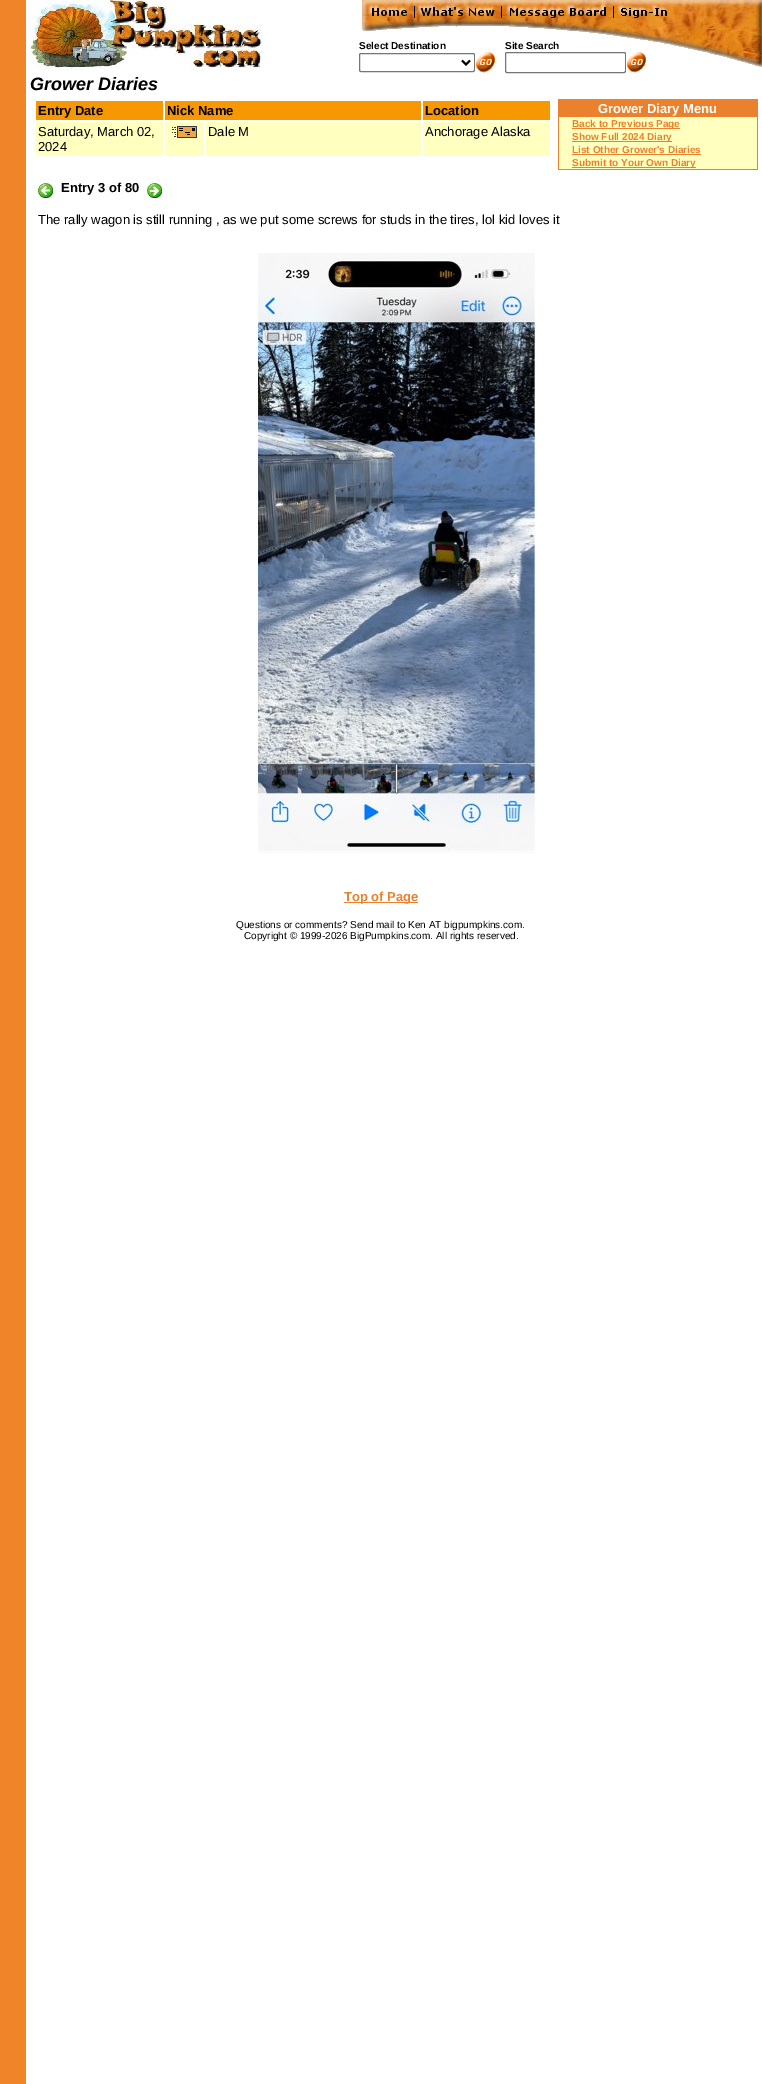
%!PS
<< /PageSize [762 2084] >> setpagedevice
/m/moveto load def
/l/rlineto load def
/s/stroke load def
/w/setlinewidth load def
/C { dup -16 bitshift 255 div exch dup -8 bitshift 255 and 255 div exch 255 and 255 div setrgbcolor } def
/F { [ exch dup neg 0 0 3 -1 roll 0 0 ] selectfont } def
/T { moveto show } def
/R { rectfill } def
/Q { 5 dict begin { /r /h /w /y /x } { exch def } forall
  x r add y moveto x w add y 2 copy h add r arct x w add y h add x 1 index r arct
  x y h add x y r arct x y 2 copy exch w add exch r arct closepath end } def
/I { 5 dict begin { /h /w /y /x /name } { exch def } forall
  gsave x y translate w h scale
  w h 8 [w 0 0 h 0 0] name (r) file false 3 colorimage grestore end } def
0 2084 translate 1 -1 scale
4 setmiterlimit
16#FFFFFF C
0 0 762 2084 R
16#EF8429 C
0 0 26 2084 R
(1.rgb) 30 0 232 70 I
(2.rgb) 362 0 400 40 I
/LiberationSans-Bold 10 F
16#000000 C
(Select Destination) 359 49 T
(Site Search) 505 49 T
(3.rgb) 648 40 114 27 I
16#767676 C
359.5 53.5 115 18 1.5 Q s
16#000000 C
2 w
462 60.5 m 4 4 l 4 -4 l s
(4.rgb) 475 52 20 21 I
16#767676 C
1 w
505.5 52.5 120 20 1.5 Q s
(4.rgb) 626 52 20 21 I
/LiberationSans-BoldItalic 18 F
16#000000 C
(Grower Diaries) 30 90 T
16#F89800 C
36 101 127 19 R
/LiberationSans-Bold 13 F
16#000000 C
(Entry Date) 38 115 T
16#F89800 C
165 101 256 19 R
16#000000 C
(Nick Name) 167 115 T
16#F89800 C
423 101 127 19 R
16#000000 C
(Location) 425 115 T
16#FFFFC0 C
36 122 127 34 R
/LiberationSans-Regular 13 F
16#000000 C
(Saturday, March 02,) 38 136 T
(2024) 38 151 T
16#FFFFC0 C
165 122 39 34 R
(5.rgb) 172 126 25 12 I
206 122 215 34 R
16#000000 C
(Dale M) 208 136 T
16#FFFFC0 C
423 122 127 34 R
16#000000 C
(Anchorage Alaska) 425 136 T
(6.rgb) 38 183 15 15 I
/LiberationSans-Bold 13 F
(Entry 3 of 80) 61 192 T
(7.rgb) 147 183 15 15 I
16#EB812D C
558 99 200 71 R
16#FFFFFF C
(Grower Diary Menu) 598 113 T
16#FFFFC0 C
559 117 12 52 R
571 117 186 52 R
16#EB812D C
572 128 108 1 R
/LiberationSans-Bold 10 F
(Back to Previous Page) 572 127 T
572 141 100 1 R
(Show Full 2024 Diary) 572 140 T
(List Other Grower's Diaries) 572 153 T
572 154 129 1 R
572 167 124 1 R
(Submit to Your Own Diary) 572 166 T
/LiberationSans-Regular 13 F
16#000000 C
(The rally wagon is still running , as we put some screws for studs in the tires, lol kid loves it) 38 224 T
(8.rgb) 258 253 277 600 I
16#EB812D C
344 902 74 1 R
/LiberationSans-Bold 13 F
(Top of Page) 344 901 T
/LiberationSans-Regular 10 F
16#000000 C
(Questions or comments? Send mail to Ken AT bigpumpkins.com.) 236 928 T
(Copyright © 1999-2026 BigPumpkins.com. All rights reserved.) 244 939 T
showpage
